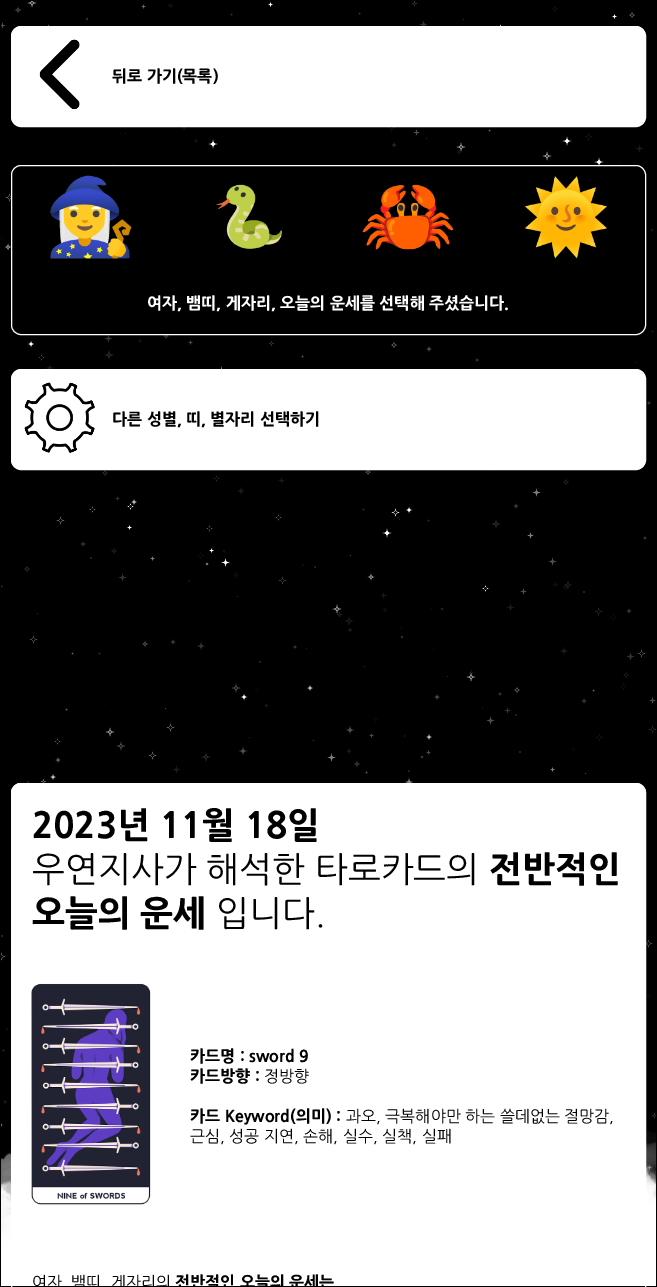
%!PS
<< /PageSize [657 1287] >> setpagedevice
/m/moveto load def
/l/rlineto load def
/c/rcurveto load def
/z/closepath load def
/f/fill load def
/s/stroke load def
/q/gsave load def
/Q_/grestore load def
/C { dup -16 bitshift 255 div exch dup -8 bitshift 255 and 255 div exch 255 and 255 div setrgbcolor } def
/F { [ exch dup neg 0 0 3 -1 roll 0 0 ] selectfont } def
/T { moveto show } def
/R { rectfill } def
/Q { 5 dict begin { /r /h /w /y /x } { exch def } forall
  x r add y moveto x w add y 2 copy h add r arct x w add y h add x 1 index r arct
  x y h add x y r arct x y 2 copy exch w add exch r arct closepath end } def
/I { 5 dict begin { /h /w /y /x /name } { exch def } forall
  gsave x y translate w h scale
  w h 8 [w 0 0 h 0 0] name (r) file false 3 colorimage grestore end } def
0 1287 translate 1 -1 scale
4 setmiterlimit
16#000000 C
0 0 657 1287 R
(1.rgb) 1 1 655 1285 I
16#FFFFFF C
11.5 26.5 634 100 9.5 Q q f Q_
s
(2.rgb) 39 39 41 71 I
/NanumGothic-ExtraBold 16 F
16#000000 C
(뒤로 가기\(목록\)) 112 82 T
11.5 165.5 634 169 9.5 Q q f Q_
16#FFFFFF C
s
(3.rgb) 50 175 82 84 I
(4.rgb) 216 184 66 65 I
(5.rgb) 362 184 92 66 I
(6.rgb) 524 176 83 83 I
(여자, 뱀띠, 게자리, 오늘의 운세를 선택해 주셨습니다.) 147 309 T
11.5 369.5 634 100 9.5 Q q f Q_
s
(7.rgb) 24 382 71 71 I
16#000000 C
(다른 성별, 띠, 별자리 선택하기) 112 425 T
16#FFFFFF C
21 783 m 615 0 l 5.5 0 10 4.5 10 10 c 0 493 l -635 0 l 0 -493 l 0 -5.5 4.5 -10 10 -10 c z f
11.5 783.5 634 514 9.5 Q s
/NanumGothic-ExtraBold 35 F
16#000000 C
(2023년 11월 18일) 32 838 T
/NanumGothic-Regular 35 F
(우연지사가 해석한 타로카드의) 32 882 T
/NanumGothic-ExtraBold 35 F
(전반적인) 489 882 T
(오늘의 운세) 32 926 T
/NanumGothic-Regular 35 F
(입니다.) 216 926 T
(8.rgb) 31 983 120 222 I
/NanumGothic-ExtraBold 16 F
(카드명 : sword 9) 190 1062 T
(카드방향 :) 190 1082 T
/NanumGothic-Regular 16 F
(정방향) 264 1082 T
/NanumGothic-ExtraBold 16 F
(카드 Keyword\(의미\) :) 190 1122 T
/NanumGothic-Regular 16 F
(과오, 극복해야만 하는 쓸데없는 절망감,) 346 1122 T
(근심, 성공 지연, 손해, 실수, 실책, 실패) 190 1142 T
q
1 1 655 1285 rectclip
(여자, 뱀띠, 게자리의) 32 1288 T
/NanumGothic-ExtraBold 16 F
(전반적인 오늘의 운세는) 175 1288 T
Q_
showpage
